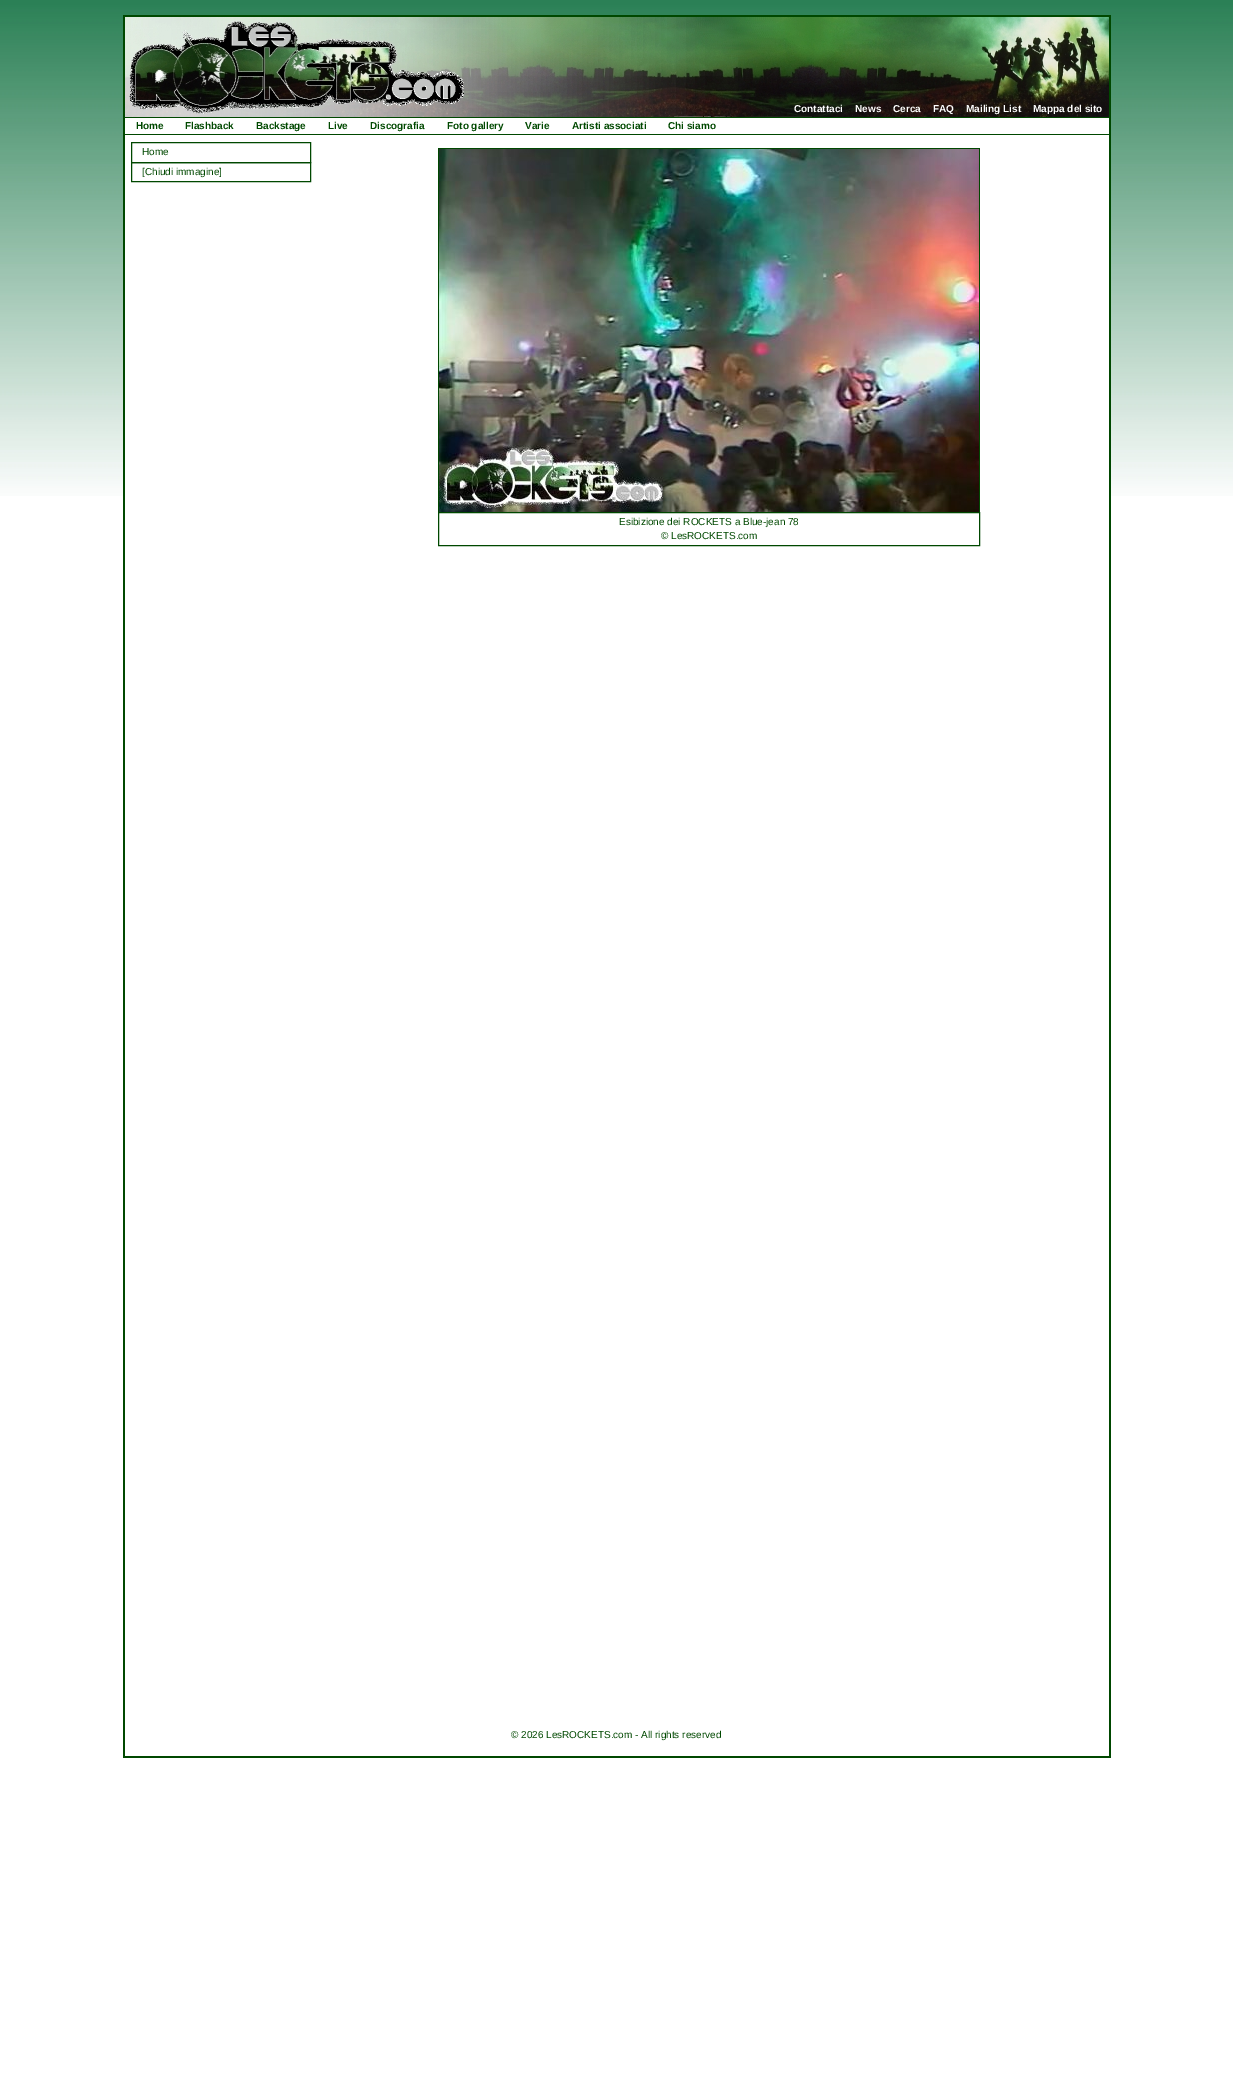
%!PS
<< /PageSize [1233 2095] >> setpagedevice
/C { dup -16 bitshift 255 div exch dup -8 bitshift 255 and 255 div exch 255 and 255 div setrgbcolor } def
/F { [ exch dup neg 0 0 3 -1 roll 0 0 ] selectfont } def
/T { moveto show } def
/R { rectfill } def
/I { 5 dict begin { /h /w /y /x /name } { exch def } forall
  gsave x y translate w h scale
  w h 8 [w 0 0 h 0 0] name (r) file false 3 colorimage grestore end } def
0 2095 translate 1 -1 scale
4 setmiterlimit
16#FFFFFF C
0 0 1233 2095 R
(1.rgb) 0 0 1233 496 I
125 118 984 378 R
16#004800 C
123 15 988 2 R
1109 15 2 1699 R
123 15 2 1699 R
(2.rgb) 125 17 984 100 I
/LiberationSans-Bold 10 F
16#FFFFFF C
(Contattaci) 794 112 T
(News) 855 112 T
(Cerca) 893 112 T
(FAQ) 933 112 T
(Mailing List) 966 112 T
(Mappa del sito) 1033 112 T
16#004800 C
125 117 984 1 R
125 134 984 1 R
(Home) 136 129 T
(Flashback) 185 129 T
(Backstage) 256 129 T
(Live) 328 129 T
(Discografia) 370 129 T
(Foto gallery) 447 129 T
(Varie) 525 129 T
(Artisti associati) 572 129 T
(Chi siamo) 668 129 T
131.5 142.5 179 20 rectstroke
/LiberationSans-Regular 10 F
(Home) 142 155 T
131.5 162.5 179 19 rectstroke
([Chiudi immagine]) 142 175 T
438 148 542 1 R
438 148 1 364 R
(3.rgb) 439 149 540 363 I
979 148 1 364 R
438.5 512.5 541 33 rectstroke
(Esibizione dei ROCKETS a Blue-jean 78) 619 525 T
(© LesROCKETS.com) 661 539 T
1109 1714 2 44 R
123 1756 988 2 R
123 1714 2 44 R
(© 2026 LesROCKETS.com - All rights reserved) 511 1738 T
showpage
